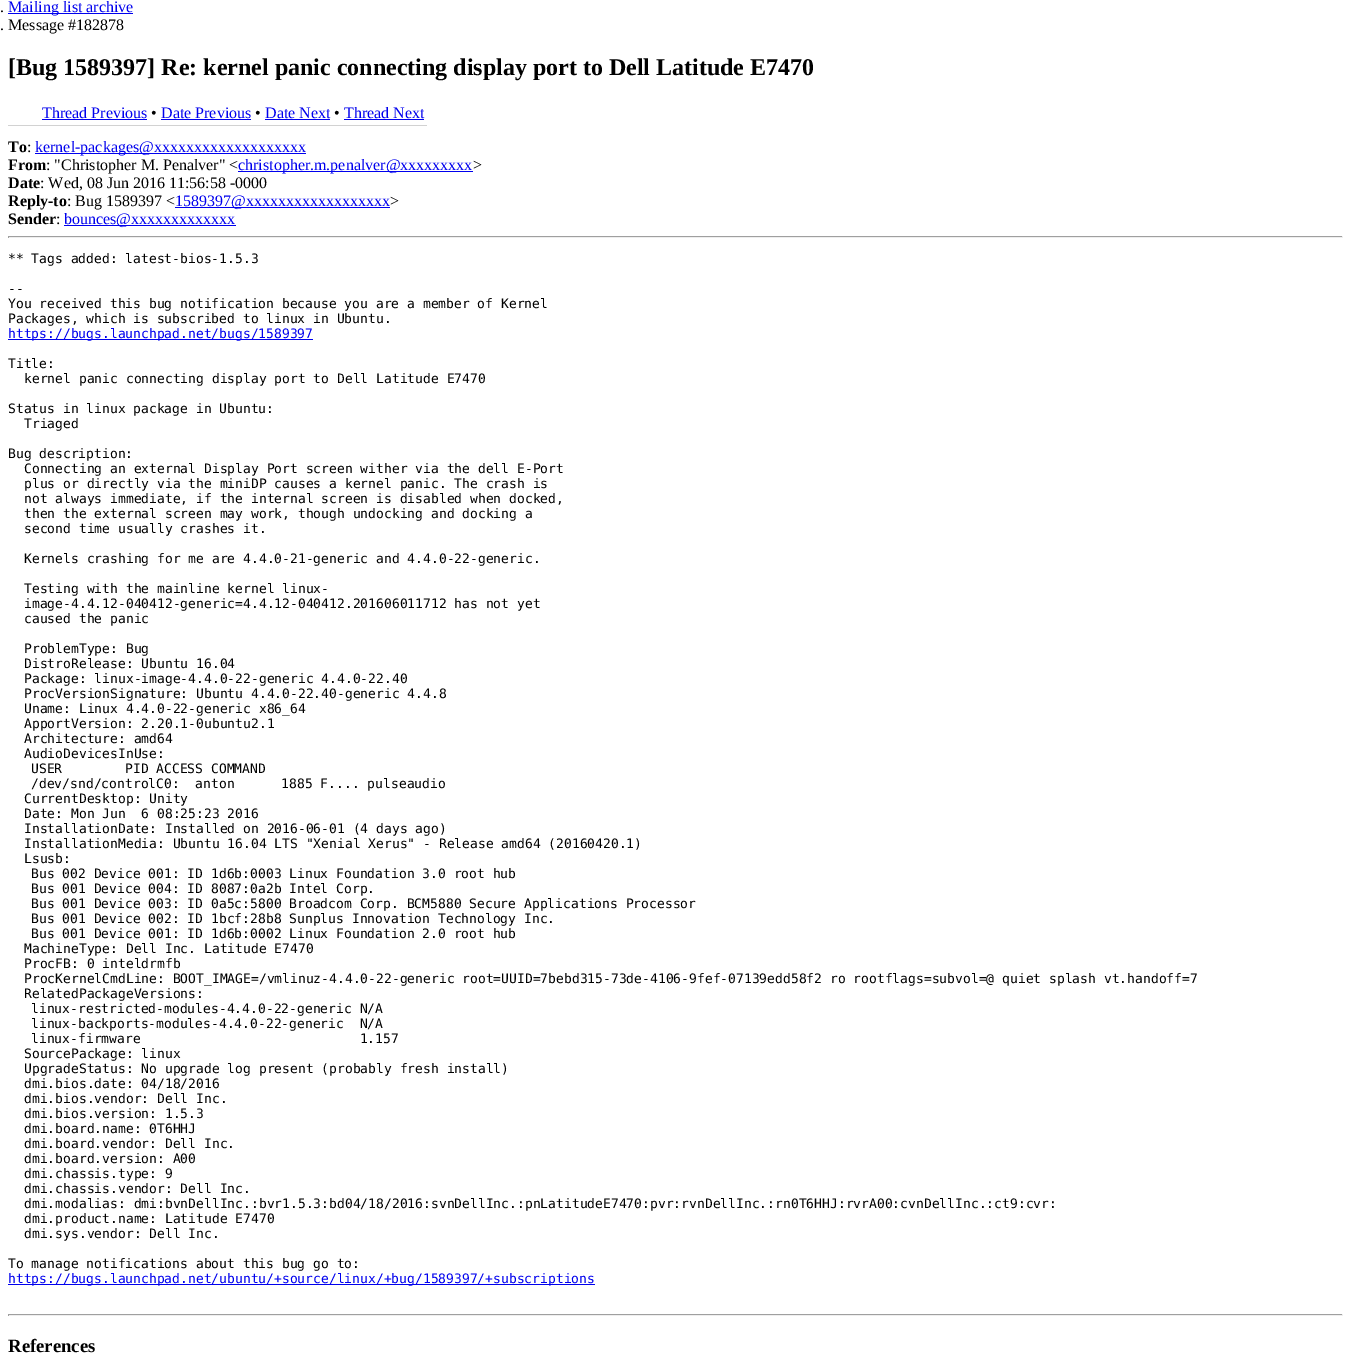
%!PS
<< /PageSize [1351 1365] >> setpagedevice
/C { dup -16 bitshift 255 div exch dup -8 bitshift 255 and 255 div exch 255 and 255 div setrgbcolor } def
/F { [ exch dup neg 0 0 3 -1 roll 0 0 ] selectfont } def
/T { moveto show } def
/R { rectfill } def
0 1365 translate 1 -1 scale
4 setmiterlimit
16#FFFFFF C
0 0 1351 1365 R
/LiberationSerif-Regular 16 F
16#000000 C
(.) 0 12 T
16#0000EE C
8 13 125 1 R
(Mailing list archive) 8 12 T
16#000000 C
(. Message #182878) 0 30 T
/LiberationSerif-Bold 24 F
([Bug 1589397] Re: kernel panic connecting display port to Dell Latitude E7470) 8 75 T
16#D2D2D2 C
8 125 419 1 R
/LiberationSerif-Regular 16 F
16#0000EE C
(Thread Previous) 42 118 T
42 119 105 1 R
16#000000 C
(•) 151 118 T
16#0000EE C
(Date Previous) 161 118 T
161 119 90 1 R
16#000000 C
(•) 255 118 T
16#0000EE C
(Date Next) 265 118 T
265 119 65 1 R
16#000000 C
(•) 334 118 T
16#0000EE C
(Thread Next) 344 118 T
344 119 80 1 R
/LiberationSerif-Bold 16 F
16#000000 C
(To) 8 152 T
/LiberationSerif-Regular 16 F
(:) 27 152 T
16#0000EE C
35 153 271 1 R
(kernel-packages@xxxxxxxxxxxxxxxxxxx) 35 152 T
/LiberationSerif-Bold 16 F
16#000000 C
(From) 8 170 T
/LiberationSerif-Regular 16 F
(: "Christopher M. Penalver" <) 46 170 T
16#0000EE C
238 171 235 1 R
(christopher.m.penalver@xxxxxxxxx) 238 170 T
16#000000 C
(>) 473 170 T
/LiberationSerif-Bold 16 F
(Date) 8 188 T
/LiberationSerif-Regular 16 F
(: Wed, 08 Jun 2016 11:56:58 -0000) 40 188 T
/LiberationSerif-Bold 16 F
(Reply-to) 8 206 T
/LiberationSerif-Regular 16 F
(: Bug 1589397 <) 67 206 T
16#0000EE C
175 207 215 1 R
(1589397@xxxxxxxxxxxxxxxxxx) 175 206 T
16#000000 C
(>) 390 206 T
/LiberationSerif-Bold 16 F
(Sender) 8 224 T
/LiberationSerif-Regular 16 F
(:) 56 224 T
16#0000EE C
64 225 172 1 R
(bounces@xxxxxxxxxxxxx) 64 224 T
16#9F9F9F C
8 236 1335 1 R
16#EEEEEE C
1342 236 1 2 R
8 237 1335 1 R
16#9F9F9F C
8 236 1 2 R
/DejaVuSansMono-Regular 13 F
16#000000 C
(** Tags added: latest-bios-1.5.3) 8 263 T
(--) 8 293 T
(You received this bug notification because you are a member of Kernel) 8 308 T
(Packages, which is subscribed to linux in Ubuntu.) 8 323 T
16#0000EE C
8 339 305 1 R
(https://bugs.launchpad.net/bugs/1589397) 8 338 T
16#000000 C
(Title:) 8 368 T
(kernel panic connecting display port to Dell Latitude E7470) 24 383 T
(Status in linux package in Ubuntu:) 8 413 T
(Triaged) 24 428 T
(Bug description:) 8 458 T
(Connecting an external Display Port screen wither via the dell E-Port) 24 473 T
(plus or directly via the miniDP causes a kernel panic. The crash is) 24 488 T
(not always immediate, if the internal screen is disabled when docked,) 24 503 T
(then the external screen may work, though undocking and docking a) 24 518 T
(second time usually crashes it.) 24 533 T
(Kernels crashing for me are 4.4.0-21-generic and 4.4.0-22-generic.) 24 563 T
(Testing with the mainline kernel linux-) 24 593 T
(image-4.4.12-040412-generic=4.4.12-040412.201606011712 has not yet) 24 608 T
(caused the panic) 24 623 T
(ProblemType: Bug) 24 653 T
(DistroRelease: Ubuntu 16.04) 24 668 T
(Package: linux-image-4.4.0-22-generic 4.4.0-22.40) 24 683 T
(ProcVersionSignature: Ubuntu 4.4.0-22.40-generic 4.4.8) 24 698 T
(Uname: Linux 4.4.0-22-generic x86_64) 24 713 T
(ApportVersion: 2.20.1-0ubuntu2.1) 24 728 T
(Architecture: amd64) 24 743 T
(AudioDevicesInUse:) 24 758 T
(USER        PID ACCESS COMMAND) 31 773 T
(/dev/snd/controlC0:  anton      1885 F.... pulseaudio) 31 788 T
(CurrentDesktop: Unity) 24 803 T
(Date: Mon Jun  6 08:25:23 2016) 24 818 T
(InstallationDate: Installed on 2016-06-01 \(4 days ago\)) 24 833 T
(InstallationMedia: Ubuntu 16.04 LTS "Xenial Xerus" - Release amd64 \(20160420.1\)) 24 848 T
(Lsusb:) 24 863 T
(Bus 002 Device 001: ID 1d6b:0003 Linux Foundation 3.0 root hub) 31 878 T
(Bus 001 Device 004: ID 8087:0a2b Intel Corp.) 31 893 T
(Bus 001 Device 003: ID 0a5c:5800 Broadcom Corp. BCM5880 Secure Applications Processor) 31 908 T
(Bus 001 Device 002: ID 1bcf:28b8 Sunplus Innovation Technology Inc.) 31 923 T
(Bus 001 Device 001: ID 1d6b:0002 Linux Foundation 2.0 root hub) 31 938 T
(MachineType: Dell Inc. Latitude E7470) 24 953 T
(ProcFB: 0 inteldrmfb) 24 968 T
(ProcKernelCmdLine: BOOT_IMAGE=/vmlinuz-4.4.0-22-generic root=UUID=7bebd315-73de-4106-9fef-07139edd58f2 ro rootflags=subvol=@ quiet splash vt.handoff=7) 24 983 T
(RelatedPackageVersions:) 24 998 T
(linux-restricted-modules-4.4.0-22-generic N/A) 31 1013 T
(linux-backports-modules-4.4.0-22-generic  N/A) 31 1028 T
(linux-firmware                            1.157) 31 1043 T
(SourcePackage: linux) 24 1058 T
(UpgradeStatus: No upgrade log present \(probably fresh install\)) 24 1073 T
(dmi.bios.date: 04/18/2016) 24 1088 T
(dmi.bios.vendor: Dell Inc.) 24 1103 T
(dmi.bios.version: 1.5.3) 24 1118 T
(dmi.board.name: 0T6HHJ) 24 1133 T
(dmi.board.vendor: Dell Inc.) 24 1148 T
(dmi.board.version: A00) 24 1163 T
(dmi.chassis.type: 9) 24 1178 T
(dmi.chassis.vendor: Dell Inc.) 24 1193 T
(dmi.modalias: dmi:bvnDellInc.:bvr1.5.3:bd04/18/2016:svnDellInc.:pnLatitudeE7470:pvr:rvnDellInc.:rn0T6HHJ:rvrA00:cvnDellInc.:ct9:cvr:) 24 1208 T
(dmi.product.name: Latitude E7470) 24 1223 T
(dmi.sys.vendor: Dell Inc.) 24 1238 T
(To manage notifications about this bug go to:) 8 1268 T
16#0000EE C
8 1284 587 1 R
(https://bugs.launchpad.net/ubuntu/+source/linux/+bug/1589397/+subscriptions) 8 1283 T
16#9F9F9F C
8 1314 1335 1 R
16#EEEEEE C
1342 1314 1 2 R
8 1315 1335 1 R
16#9F9F9F C
8 1314 1 2 R
/LiberationSerif-Bold 18.75 F
16#000000 C
(References) 8 1352 T
showpage
